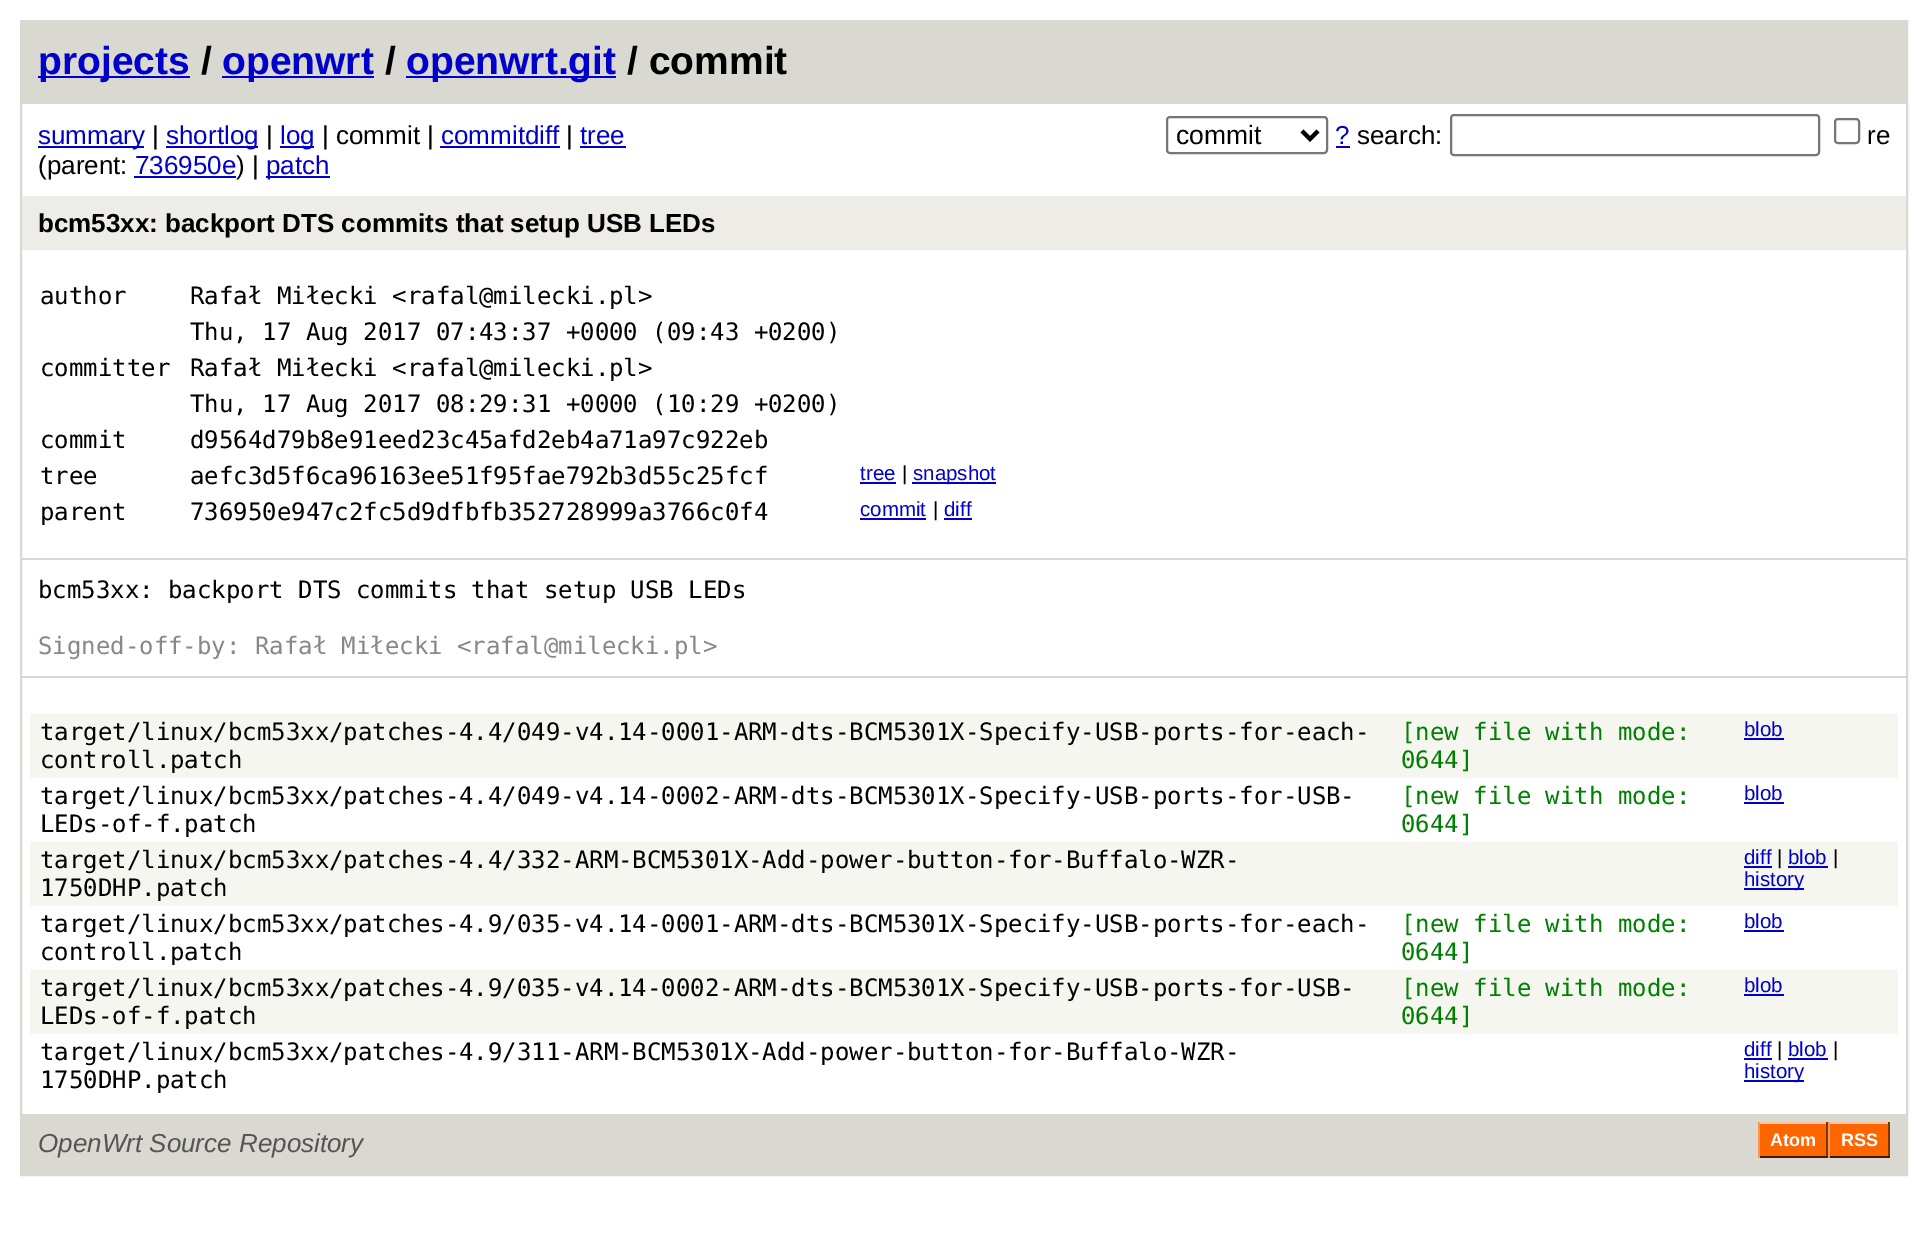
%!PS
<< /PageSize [1927 1256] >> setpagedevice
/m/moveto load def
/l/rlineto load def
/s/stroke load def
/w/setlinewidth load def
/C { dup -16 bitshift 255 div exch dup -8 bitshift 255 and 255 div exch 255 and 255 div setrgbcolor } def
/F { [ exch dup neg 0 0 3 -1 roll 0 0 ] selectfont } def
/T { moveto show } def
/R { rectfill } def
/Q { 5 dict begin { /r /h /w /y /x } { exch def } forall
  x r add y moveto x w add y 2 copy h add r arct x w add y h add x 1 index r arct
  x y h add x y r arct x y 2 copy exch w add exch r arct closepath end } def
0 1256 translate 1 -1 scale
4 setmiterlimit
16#FFFFFF C
0 0 1927 1256 R
16#D9D8D1 C
2 w
21 21 1886 1154 rectstroke
22 22 1884 82 R
16#0000CC C
38 76 152 2 R
/LiberationSans-Bold 39 F
(projects) 38 74 T
16#000000 C
(/) 201 74 T
16#0000CC C
222 76 152 2 R
(openwrt) 222 74 T
16#000000 C
(/) 385 74 T
16#0000CC C
406 76 210 2 R
(openwrt.git) 406 74 T
16#000000 C
(/ commit) 627 74 T
16#0000CC C
38 146 106 2 R
/LiberationSans-Regular 26 F
(summary) 38 144 T
16#000000 C
(|) 152 144 T
16#0000CC C
166 146 92 2 R
(shortlog) 166 144 T
16#000000 C
(|) 266 144 T
16#0000CC C
280 146 34 2 R
(log) 280 144 T
16#000000 C
(| commit |) 322 144 T
16#0000CC C
(commitdiff) 441 144 T
440 146 120 2 R
16#000000 C
(|) 566 144 T
16#0000CC C
(tree) 580 144 T
580 146 46 2 R
16#000000 C
(\(parent:) 38 174 T
16#0000CC C
(736950e) 135 174 T
134 176 102 2 R
16#000000 C
(\) |) 236 174 T
16#0000CC C
266 176 64 2 R
(patch) 266 174 T
16#767676 C
1167 117 160 36 3 Q s
16#000000 C
4 w
1302 131 m 8 8 l 8 -8 l s
/LiberationSans-Regular 26.5 F
(commit) 1176 144 T
/LiberationSans-Regular 26 F
16#0000CC C
(?) 1335 144 T
1336 146 14 2 R
16#000000 C
(search:) 1357 144 T
16#767676 C
2 w
1451 115 368 40 3 Q s
1835 119 24 24 3 Q s
16#000000 C
(re) 1867 144 T
16#EDECE6 C
22 196 1884 54 R
/LiberationSans-Bold 26 F
16#000000 C
(bcm53xx: backport DTS commits that setup USB LEDs) 38 232 T
16#D9D8D1 C
22 558 1884 2 R
/DejaVuSansMono-Regular 24 F
16#000000 C
(author) 40 304 T
(Rafał Miłecki <rafal@milecki.pl>) 190 304 T
(Thu, 17 Aug 2017 07:43:37 +0000 \(09:43 +0200\)) 190 340 T
(committer) 40 376 T
(Rafał Miłecki <rafal@milecki.pl>) 190 376 T
(Thu, 17 Aug 2017 08:29:31 +0000 \(10:29 +0200\)) 190 412 T
(commit) 40 448 T
(d9564d79b8e91eed23c45afd2eb4a71a97c922eb) 190 448 T
(tree) 40 484 T
(aefc3d5f6ca96163ee51f95fae792b3d55c25fcf) 190 484 T
/LiberationSans-Regular 20.5 F
16#0000CC C
(tree) 860 480 T
860 482 36 2 R
16#000000 C
(|) 902 480 T
16#0000CC C
912 482 84 2 R
(snapshot) 913 480 T
/DejaVuSansMono-Regular 24 F
16#000000 C
(parent) 40 520 T
(736950e947c2fc5d9dfbfb352728999a3766c0f4) 190 520 T
/LiberationSans-Regular 20.5 F
16#0000CC C
(commit) 860 516 T
860 518 66 2 R
16#000000 C
(|) 933 516 T
16#0000CC C
(diff) 944 516 T
944 518 28 2 R
/DejaVuSansMono-Regular 24 F
16#000000 C
(bcm53xx: backport DTS commits that setup USB LEDs) 38 598 T
16#888888 C
(Signed-off-by: Rafał Miłecki <rafal@milecki.pl>) 38 654 T
16#D9D8D1 C
22 676 1884 2 R
16#F6F6F0 C
30 714 1868 64 R
16#000000 C
(target/linux/bcm53xx/patches-4.4/049-v4.14-0001-ARM-dts-BCM5301X-Specify-USB-ports-for-each-) 40 740 T
(controll.patch) 40 768 T
16#008000 C
([new file with mode:) 1401 740 T
(0644]) 1401 768 T
/LiberationSans-Regular 20.5 F
16#0000CC C
(blob) 1744 736 T
1744 738 40 2 R
/DejaVuSansMono-Regular 24 F
16#000000 C
(target/linux/bcm53xx/patches-4.4/049-v4.14-0002-ARM-dts-BCM5301X-Specify-USB-ports-for-USB-) 40 804 T
(LEDs-of-f.patch) 40 832 T
16#008000 C
([new file with mode:) 1401 804 T
(0644]) 1401 832 T
/LiberationSans-Regular 20.5 F
16#0000CC C
(blob) 1744 800 T
1744 802 40 2 R
16#F6F6F0 C
30 842 1868 64 R
/DejaVuSansMono-Regular 24 F
16#000000 C
(target/linux/bcm53xx/patches-4.4/332-ARM-BCM5301X-Add-power-button-for-Buffalo-WZR-) 40 868 T
(1750DHP.patch) 40 896 T
/LiberationSans-Regular 20.5 F
16#0000CC C
(diff) 1744 864 T
1744 866 28 2 R
16#000000 C
(|) 1777 864 T
16#0000CC C
(blob) 1788 864 T
1788 866 40 2 R
16#000000 C
(|) 1833 864 T
16#0000CC C
1744 888 60 2 R
(history) 1744 886 T
/DejaVuSansMono-Regular 24 F
16#000000 C
(target/linux/bcm53xx/patches-4.9/035-v4.14-0001-ARM-dts-BCM5301X-Specify-USB-ports-for-each-) 40 932 T
(controll.patch) 40 960 T
16#008000 C
([new file with mode:) 1401 932 T
(0644]) 1401 960 T
/LiberationSans-Regular 20.5 F
16#0000CC C
(blob) 1744 928 T
1744 930 40 2 R
16#F6F6F0 C
30 970 1868 64 R
/DejaVuSansMono-Regular 24 F
16#000000 C
(target/linux/bcm53xx/patches-4.9/035-v4.14-0002-ARM-dts-BCM5301X-Specify-USB-ports-for-USB-) 40 996 T
(LEDs-of-f.patch) 40 1024 T
16#008000 C
([new file with mode:) 1401 996 T
(0644]) 1401 1024 T
/LiberationSans-Regular 20.5 F
16#0000CC C
(blob) 1744 992 T
1744 994 40 2 R
/DejaVuSansMono-Regular 24 F
16#000000 C
(target/linux/bcm53xx/patches-4.9/311-ARM-BCM5301X-Add-power-button-for-Buffalo-WZR-) 40 1060 T
(1750DHP.patch) 40 1088 T
/LiberationSans-Regular 20.5 F
16#0000CC C
(diff) 1744 1056 T
1744 1058 28 2 R
16#000000 C
(|) 1777 1056 T
16#0000CC C
(blob) 1788 1056 T
1788 1058 40 2 R
16#000000 C
(|) 1833 1056 T
16#0000CC C
1744 1080 60 2 R
(history) 1744 1078 T
16#D9D8D1 C
22 1114 1884 60 R
/LiberationSans-Italic 26 F
16#555555 C
(OpenWrt Source Repository) 38 1152 T
16#FF6600 C
1760 1124 66 32 R
16#FCC7A5 C
1758 1122 132 2 R
16#7D3302 C
1826 1122 2 36 R
16#3E1A01 C
1758 1156 70 2 R
16#FF954E C
1758 1122 2 36 R
/LiberationSans-Bold 18 F
16#FFFFFF C
(Atom) 1770 1146 T
16#FF6600 C
1830 1124 58 32 R
16#7D3302 C
1888 1122 2 36 R
16#3E1A01 C
1828 1156 62 2 R
16#FF954E C
1828 1122 2 36 R
16#FFFFFF C
(RSS) 1841 1146 T
showpage
